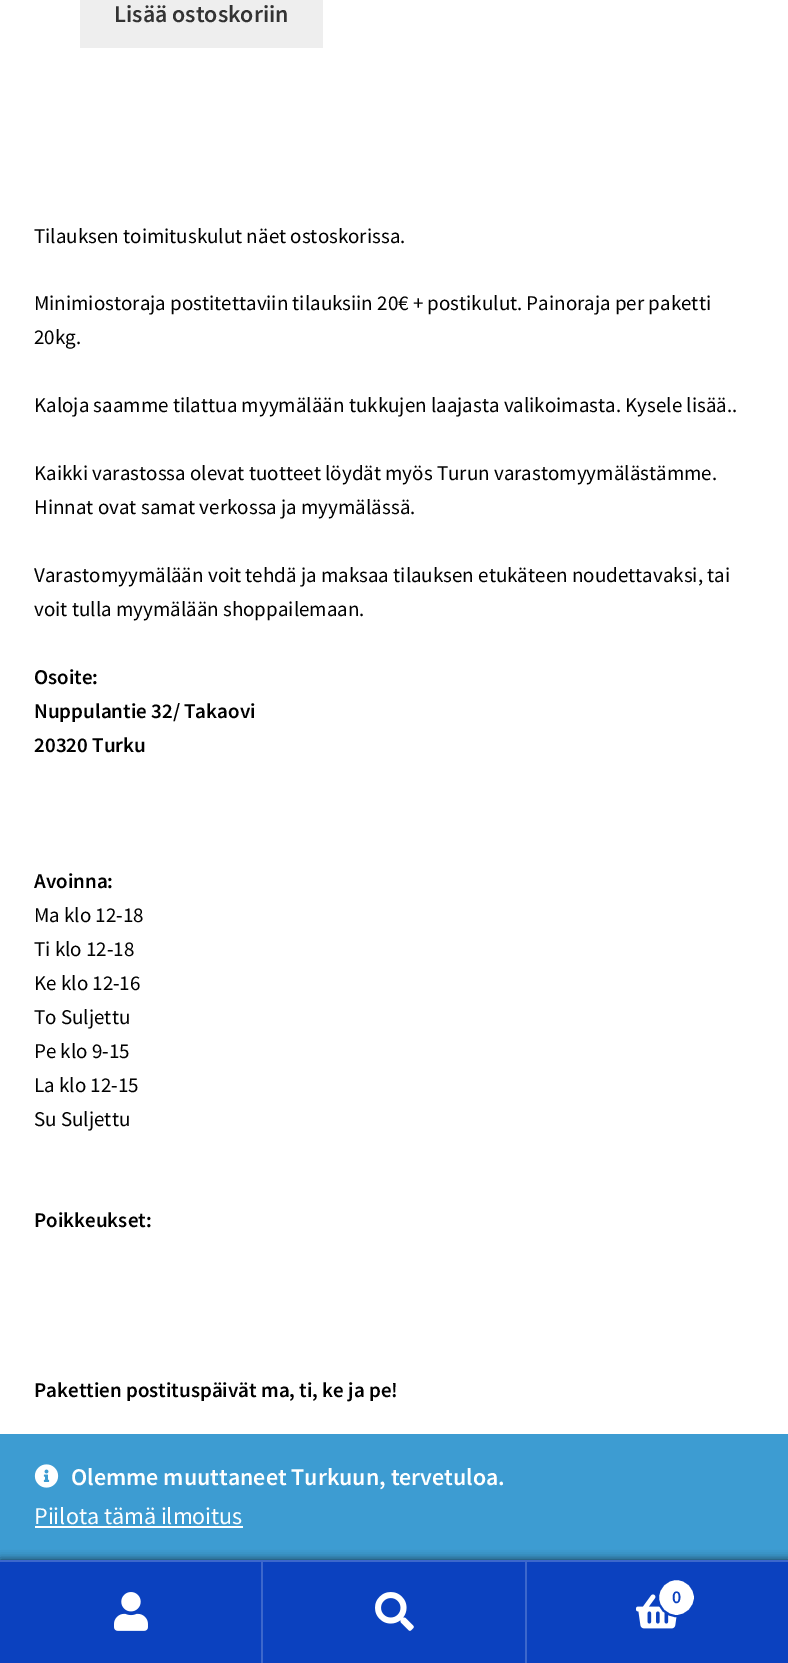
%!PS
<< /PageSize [788 1663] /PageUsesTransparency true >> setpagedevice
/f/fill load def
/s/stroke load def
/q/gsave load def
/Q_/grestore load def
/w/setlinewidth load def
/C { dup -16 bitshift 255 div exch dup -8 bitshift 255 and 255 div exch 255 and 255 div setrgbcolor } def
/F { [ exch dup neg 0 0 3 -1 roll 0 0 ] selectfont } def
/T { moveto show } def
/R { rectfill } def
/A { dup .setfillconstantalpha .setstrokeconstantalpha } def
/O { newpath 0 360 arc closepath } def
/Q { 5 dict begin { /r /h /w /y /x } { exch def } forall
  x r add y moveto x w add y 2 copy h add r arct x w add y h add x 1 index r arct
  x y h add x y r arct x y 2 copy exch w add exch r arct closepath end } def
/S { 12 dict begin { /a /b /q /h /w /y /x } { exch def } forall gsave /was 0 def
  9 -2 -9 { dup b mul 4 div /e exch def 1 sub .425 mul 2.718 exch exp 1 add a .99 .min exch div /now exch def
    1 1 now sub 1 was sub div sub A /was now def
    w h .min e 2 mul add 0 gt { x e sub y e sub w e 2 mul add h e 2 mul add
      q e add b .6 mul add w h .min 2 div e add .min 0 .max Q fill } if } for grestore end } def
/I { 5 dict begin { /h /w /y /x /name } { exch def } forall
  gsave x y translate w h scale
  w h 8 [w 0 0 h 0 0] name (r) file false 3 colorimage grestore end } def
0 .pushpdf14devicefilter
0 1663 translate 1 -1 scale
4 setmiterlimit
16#FFFFFF C
0 0 788 1663 R
16#EEEEEE C
80 0 243 48 R
/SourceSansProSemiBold-SemiBold 24 F
16#333333 C
(Lisää ostoskoriin) 114 22 T
/SourceSansPro-Regular 21 F
16#000000 C
(Tilauksen toimituskulut näet ostoskorissa.) 34 243 T
(Minimiostoraja postitettaviin tilauksiin 20€ + postikulut. Painoraja per paketti) 34 310 T
(20kg.) 34 344 T
(Kaloja saamme tilattua myymälään tukkujen laajasta valikoimasta. Kysele lisää..) 34 412 T
(Kaikki varastossa olevat tuotteet löydät myös Turun varastomyymälästämme.) 34 480 T
(Hinnat ovat samat verkossa ja myymälässä.) 34 514 T
(Varastomyymälään voit tehdä ja maksaa tilauksen etukäteen noudettavaksi, tai) 34 582 T
(voit tulla myymälään shoppailemaan.) 34 616 T
/SourceSansProSemiBold-SemiBold 21 F
(Osoite:) 34 684 T
(Nuppulantie 32/ Takaovi) 34 718 T
(20320 Turku) 34 752 T
(Avoinna:) 34 888 T
/SourceSansPro-Regular 21 F
(Ma klo 12-18) 34 922 T
(Ti klo 12-18) 34 956 T
(Ke klo 12-16) 34 990 T
(To Suljettu) 34 1024 T
(Pe klo 9-15) 34 1058 T
(La klo 12-15) 34 1092 T
(Su Suljettu) 34 1126 T
/SourceSansProSemiBold-SemiBold 21 F
(Poikkeukset:) 34 1227 T
(Pakettien postituspäivät ma, ti, ke ja pe!) 34 1397 T
16#3D9CD2 C
0 1434 788 126 R
16#000000 C
0 1560 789 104 0 4.5 .7 S
16#3C67CC C
0 1560 788 2 R
16#0B41BF C
0 1562 261 101 R
16#3C67CC C
261 1562 2 101 R
(1.rgb) 114 1592 34 39 I
16#0B41BF C
263 1562 262 101 R
16#3C67CC C
525 1562 2 101 R
(2.rgb) 375 1592 39 39 I
16#0B41BF C
527 1562 261 101 R
(3.rgb) 636 1594 41 35 I
16#FFFFFF C
676.5 1597.5 18.5 O q f Q_
16#0B41BF C
2 w
s
/SourceSansProSemiBold-SemiBold 18 F
(0) 672 1603 T
(4.rgb) 34 1464 25 24 I
/SourceSansProSemiBold-SemiBold 24 F
16#FFFFFF C
(Olemme muuttaneet Turkuun, tervetuloa.) 71 1485 T
/SourceSansPro-Regular 24 F
(Piilota tämä ilmoitus) 34 1524 T
35 1526 208 2 R
.poppdf14devicefilter showpage
